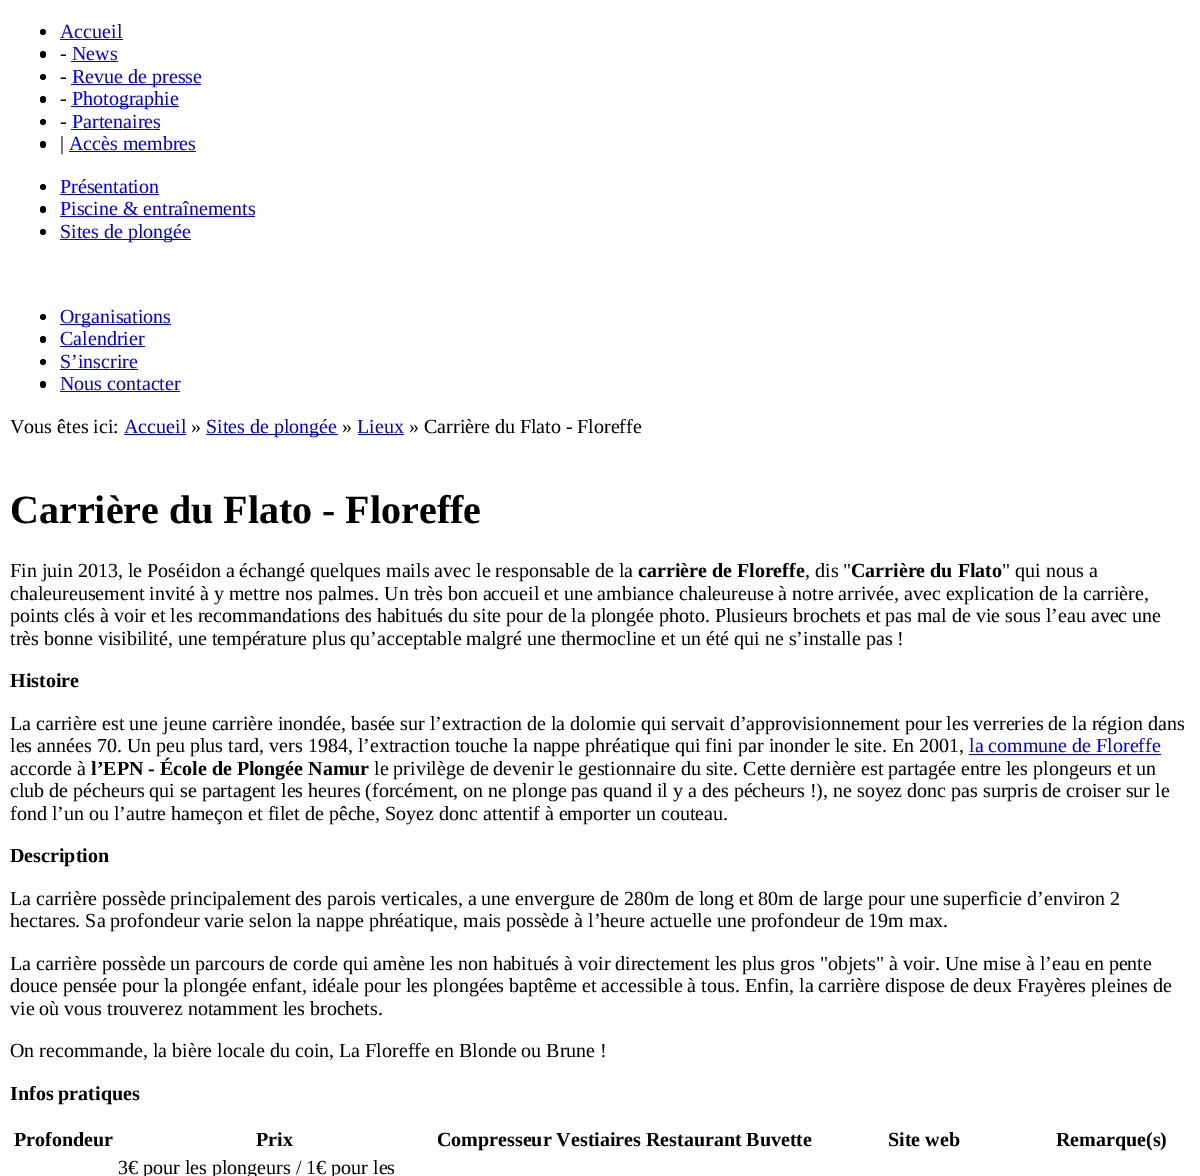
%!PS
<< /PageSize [1200 1176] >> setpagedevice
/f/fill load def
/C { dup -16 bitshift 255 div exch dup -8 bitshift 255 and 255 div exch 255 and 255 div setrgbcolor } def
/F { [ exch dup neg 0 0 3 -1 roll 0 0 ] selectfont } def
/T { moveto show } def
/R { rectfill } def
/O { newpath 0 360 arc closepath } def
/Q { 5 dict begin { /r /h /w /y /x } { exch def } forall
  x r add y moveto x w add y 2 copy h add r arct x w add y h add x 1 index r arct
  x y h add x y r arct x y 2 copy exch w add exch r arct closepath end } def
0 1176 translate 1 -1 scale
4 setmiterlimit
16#FFFFFF C
0 0 1200 1176 R
16#000000 C
43 32 3 O f
/LiberationSerif-Regular 20 F
16#0000EE C
(Accueil) 60 38 T
60 39 63 1 R
16#000000 C
40 51 6 7 3 Q f
(-) 60 60 T
16#0000EE C
(News) 72 60 T
71 61 47 1 R
16#000000 C
43 77 3 O f
(-) 60 83 T
16#0000EE C
71 84 130 1 R
(Revue de presse) 72 83 T
16#000000 C
40 96 6 7 3 Q f
(-) 60 105 T
16#0000EE C
71 106 108 1 R
(Photographie) 72 105 T
16#000000 C
43 122 3 O f
(-) 60 128 T
16#0000EE C
(Partenaires) 72 128 T
71 129 89 1 R
16#000000 C
40 141 6 7 3 Q f
(|) 60 150 T
16#0000EE C
(Accès membres) 69 150 T
69 151 127 1 R
16#000000 C
43 187 3 O f
16#0000EE C
(Présentation) 60 193 T
60 194 99 1 R
16#000000 C
40 206 6 7 3 Q f
16#0000EE C
(Piscine & entraînements) 60 215 T
60 216 195 1 R
16#000000 C
43 232 3 O f
16#0000EE C
60 239 131 1 R
(Sites de plongée) 60 238 T
16#000000 C
43 317 3 O f
16#0000EE C
60 324 111 1 R
(Organisations) 60 323 T
16#000000 C
40 336 6 7 3 Q f
16#0000EE C
(Calendrier) 60 345 T
60 346 85 1 R
16#000000 C
43 362 3 O f
16#0000EE C
(S’inscrire) 60 368 T
60 369 78 1 R
16#000000 C
40 381 6 7 3 Q f
16#0000EE C
(Nous contacter) 60 390 T
60 391 120 1 R
16#000000 C
(Vous êtes ici:) 10 433 T
16#0000EE C
(Accueil) 124 433 T
124 434 62 1 R
16#000000 C
(») 191 433 T
16#0000EE C
206 434 132 1 R
(Sites de plongée) 206 433 T
16#000000 C
(») 342 433 T
16#0000EE C
(Lieux) 357 433 T
358 434 46 1 R
16#000000 C
(» Carrière du Flato - Floreffe) 409 433 T
/LiberationSerif-Bold 40 F
(Carrière du Flato - Floreffe) 10 523 T
/LiberationSerif-Regular 20 F
(Fin juin 2013, le Poséidon a échangé quelques mails avec le responsable de la) 10 577 T
/LiberationSerif-Bold 20 F
(carrière de Floreffe) 638 577 T
/LiberationSerif-Regular 20 F
(, dis ") 805 577 T
/LiberationSerif-Bold 20 F
(Carrière du Flato) 851 577 T
/LiberationSerif-Regular 20 F
(" qui nous a) 1002 577 T
(chaleureusement invité à y mettre nos palmes. Un très bon accueil et une ambiance chaleureuse à notre arrivée, avec explication de la carrière,) 10 600 T
(points clés à voir et les recommandations des habitués du site pour de la plongée photo. Plusieurs brochets et pas mal de vie sous l’eau avec une) 10 622 T
(très bonne visibilité, une température plus qu’acceptable malgré une thermocline et un été qui ne s’installe pas !) 10 645 T
/LiberationSerif-Bold 20 F
(Histoire) 10 687 T
/LiberationSerif-Regular 20 F
(La carrière est une jeune carrière inondée, basée sur l’extraction de la dolomie qui servait d’approvisionnement pour les verreries de la région dans) 10 730 T
(les années 70. Un peu plus tard, vers 1984, l’extraction touche la nappe phréatique qui fini par inonder le site. En 2001,) 10 752 T
16#0000EE C
(la commune de Floreffe) 969 752 T
969 754 192 1 R
16#000000 C
(accorde à) 10 775 T
/LiberationSerif-Bold 20 F
(l’EPN - École de Plongée Namur) 91 775 T
/LiberationSerif-Regular 20 F
(le privilège de devenir le gestionnaire du site. Cette dernière est partagée entre les plongeurs et un) 374 775 T
(club de pécheurs qui se partagent les heures \(forcément, on ne plonge pas quand il y a des pécheurs !\), ne soyez donc pas surpris de croiser sur le) 10 797 T
(fond l’un ou l’autre hameçon et filet de pêche, Soyez donc attentif à emporter un couteau.) 10 820 T
/LiberationSerif-Bold 20 F
(Description) 10 862 T
/LiberationSerif-Regular 20 F
(La carrière possède principalement des parois verticales, a une envergure de 280m de long et 80m de large pour une superficie d’environ 2) 10 905 T
(hectares. Sa profondeur varie selon la nappe phréatique, mais possède à l’heure actuelle une profondeur de 19m max.) 10 927 T
(La carrière possède un parcours de corde qui amène les non habitués à voir directement les plus gros "objets" à voir. Une mise à l’eau en pente) 10 970 T
(douce pensée pour la plongée enfant, idéale pour les plongées baptême et accessible à tous. Enfin, la carrière dispose de deux Frayères pleines de) 10 992 T
(vie où vous trouverez notamment les brochets.) 10 1015 T
(On recommande, la bière locale du coin, La Floreffe en Blonde ou Brune !) 10 1057 T
/LiberationSerif-Bold 20 F
(Infos pratiques) 10 1100 T
(Profondeur) 14 1146 T
(Prix) 256 1146 T
(Compresseur Vestiaires Restaurant Buvette) 437 1146 T
(Site web) 888 1146 T
(Remarque\(s\)) 1056 1146 T
/LiberationSerif-Regular 20 F
(3€ pour les plongeurs / 1€ pour les) 118 1174 T
showpage
